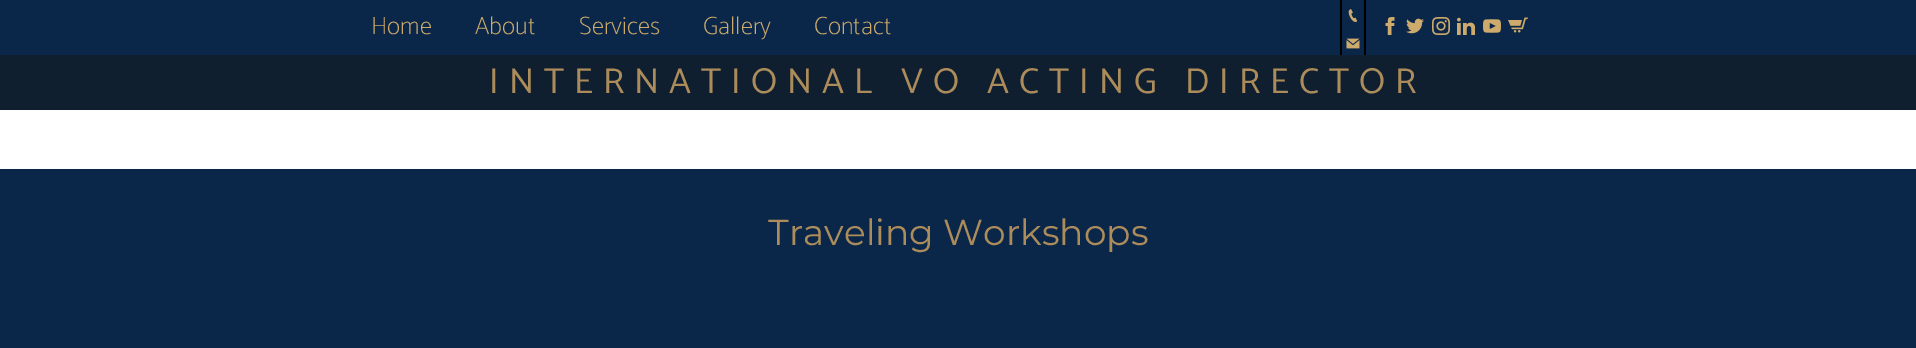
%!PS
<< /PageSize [1916 348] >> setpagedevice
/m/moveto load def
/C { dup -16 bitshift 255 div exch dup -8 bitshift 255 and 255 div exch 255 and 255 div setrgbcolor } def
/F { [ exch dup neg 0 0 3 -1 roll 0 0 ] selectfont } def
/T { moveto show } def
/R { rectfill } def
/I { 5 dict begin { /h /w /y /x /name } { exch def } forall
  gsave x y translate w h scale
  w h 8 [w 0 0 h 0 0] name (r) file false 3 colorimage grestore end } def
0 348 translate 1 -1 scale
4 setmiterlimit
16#FFFFFF C
0 0 1916 348 R
16#0A2749 C
0 0 1916 55 R
/Catamaran-Thin 25 F
16#CEAA6C C
(Home) 371 34 T
(About) 475 34 T
(Services) 579 34 T
(Gallery) 703 34 T
(Contact) 814 34 T
16#000000 C
1364 0 2 55 R
1340 0 2 55 R
(1.rgb) 1348 9 10 13 I
(2.rgb) 1346 38 14 11 I
(3.rgb) 1385 17 10 18 I
(4.rgb) 1406 18 18 16 I
(5.rgb) 1432 17 18 18 I
(6.rgb) 1457 17 18 18 I
(7.rgb) 1483 19 18 14 I
(8.rgb) 1508 17 20 16 I
16#0F1F2F C
0 55 1916 55 R
/Catamaran-Regular 36 F
16#AC8C5B C
489 93 m 10 0 (INTERNATIONAL VO ACTING DIRECTOR) ashow
16#0A2749 C
0 169 1916 179 R
/Montserrat-Regular 36 F
16#AC8C5B C
(Traveling Workshops) 768 245 T
showpage
